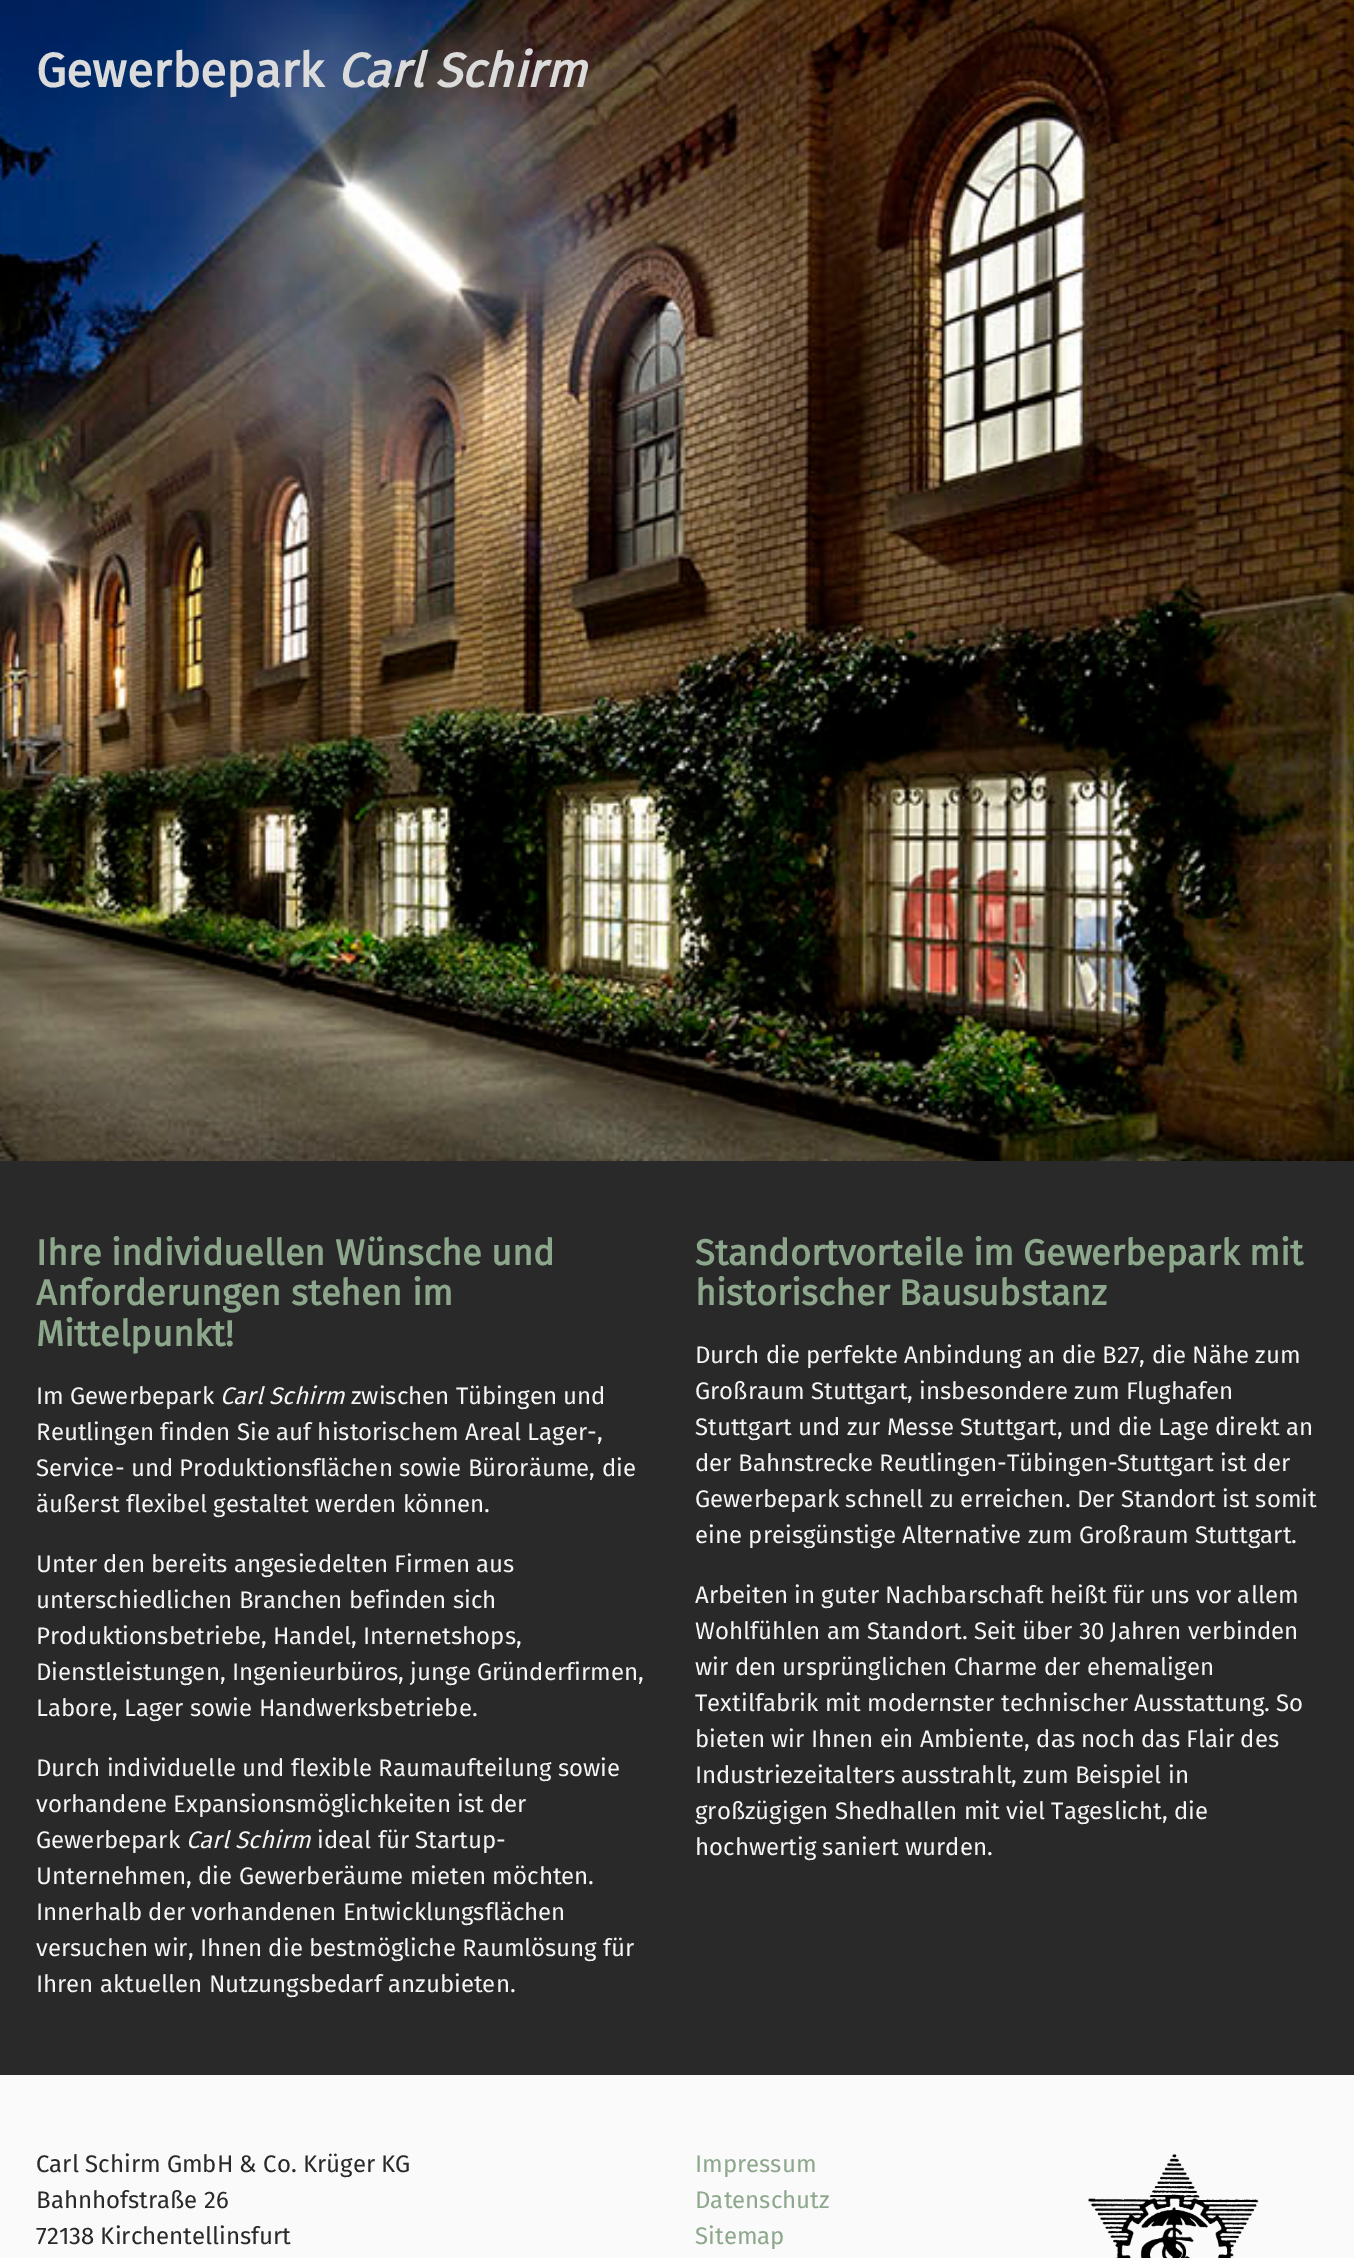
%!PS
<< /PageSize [1354 2258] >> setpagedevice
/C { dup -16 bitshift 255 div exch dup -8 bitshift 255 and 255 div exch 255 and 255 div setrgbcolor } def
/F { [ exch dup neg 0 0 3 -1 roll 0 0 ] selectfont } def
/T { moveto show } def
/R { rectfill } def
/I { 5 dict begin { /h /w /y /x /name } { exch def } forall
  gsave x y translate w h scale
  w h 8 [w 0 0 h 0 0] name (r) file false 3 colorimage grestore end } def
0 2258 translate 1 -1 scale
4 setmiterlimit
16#292929 C
0 0 1354 2258 R
(1.rgb) 0 0 1354 1161 I
/FiraSans-Bold 48 F
16#DBDBDB C
(Gewerbepark) 36 87 T
/FiraSans-BoldItalic 48 F
(Carl Schirm) 337 87 T
/FiraSans-Bold 36 F
16#8DA78C C
(Ihre individuellen Wünsche und) 36 1265 T
(Anforderungen stehen im) 36 1305 T
(Mittelpunkt!) 36 1346 T
/FiraSans-Regular 24 F
16#F5F5F5 C
(Im Gewerbepark) 36 1404 T
/FiraSans-Italic 24 F
(Carl Schirm) 220 1404 T
/FiraSans-Regular 24 F
(zwischen Tübingen und) 351 1404 T
(Reutlingen finden Sie auf historischem Areal Lager-,) 36 1440 T
(Service- und Produktionsflächen sowie Büroräume, die) 36 1476 T
(äußerst flexibel gestaltet werden können.) 36 1512 T
(Unter den bereits angesiedelten Firmen aus) 36 1572 T
(unterschiedlichen Branchen befinden sich) 36 1608 T
(Produktionsbetriebe, Handel, Internetshops,) 36 1644 T
(Dienstleistungen, Ingenieurbüros, junge Gründerfirmen,) 36 1680 T
(Labore, Lager sowie Handwerksbetriebe.) 36 1716 T
(Durch individuelle und flexible Raumaufteilung sowie) 36 1776 T
(vorhandene Expansionsmöglichkeiten ist der) 36 1812 T
(Gewerbepark) 36 1848 T
/FiraSans-Italic 24 F
(Carl Schirm) 186 1848 T
/FiraSans-Regular 24 F
(ideal für Startup-) 317 1848 T
(Unternehmen, die Gewerberäume mieten möchten.) 36 1884 T
(Innerhalb der vorhandenen Entwicklungsflächen) 36 1920 T
(versuchen wir, Ihnen die bestmögliche Raumlösung für) 36 1956 T
(Ihren aktuellen Nutzungsbedarf anzubieten.) 36 1992 T
/FiraSans-Bold 36 F
16#8DA78C C
(Standortvorteile im Gewerbepark mit) 695 1265 T
(historischer Bausubstanz) 695 1305 T
/FiraSans-Regular 24 F
16#F5F5F5 C
(Durch die perfekte Anbindung an die B27, die Nähe zum) 695 1363 T
(Großraum Stuttgart, insbesondere zum Flughafen) 695 1399 T
(Stuttgart und zur Messe Stuttgart, und die Lage direkt an) 695 1435 T
(der Bahnstrecke Reutlingen-Tübingen-Stuttgart ist der) 695 1471 T
(Gewerbepark schnell zu erreichen. Der Standort ist somit) 695 1507 T
(eine preisgünstige Alternative zum Großraum Stuttgart.) 695 1543 T
(Arbeiten in guter Nachbarschaft heißt für uns vor allem) 695 1603 T
(Wohlfühlen am Standort. Seit über 30 Jahren verbinden) 695 1639 T
(wir den ursprünglichen Charme der ehemaligen) 695 1675 T
(Textilfabrik mit modernster technischer Ausstattung. So) 695 1711 T
(bieten wir Ihnen ein Ambiente, das noch das Flair des) 695 1747 T
(Industriezeitalters ausstrahlt, zum Beispiel in) 695 1783 T
(großzügigen Shedhallen mit viel Tageslicht, die) 695 1819 T
(hochwertig saniert wurden.) 695 1855 T
16#FAFAFA C
0 2075 1354 183 R
16#292929 C
(Carl Schirm GmbH & Co. Krüger KG) 36 2172 T
(Bahnhofstraße 26) 36 2208 T
(72138 Kirchentellinsfurt) 36 2244 T
16#8DA78C C
(Impressum) 695 2172 T
(Datenschutz) 695 2208 T
(Sitemap) 695 2244 T
(2.rgb) 1088 2154 171 104 I
showpage
